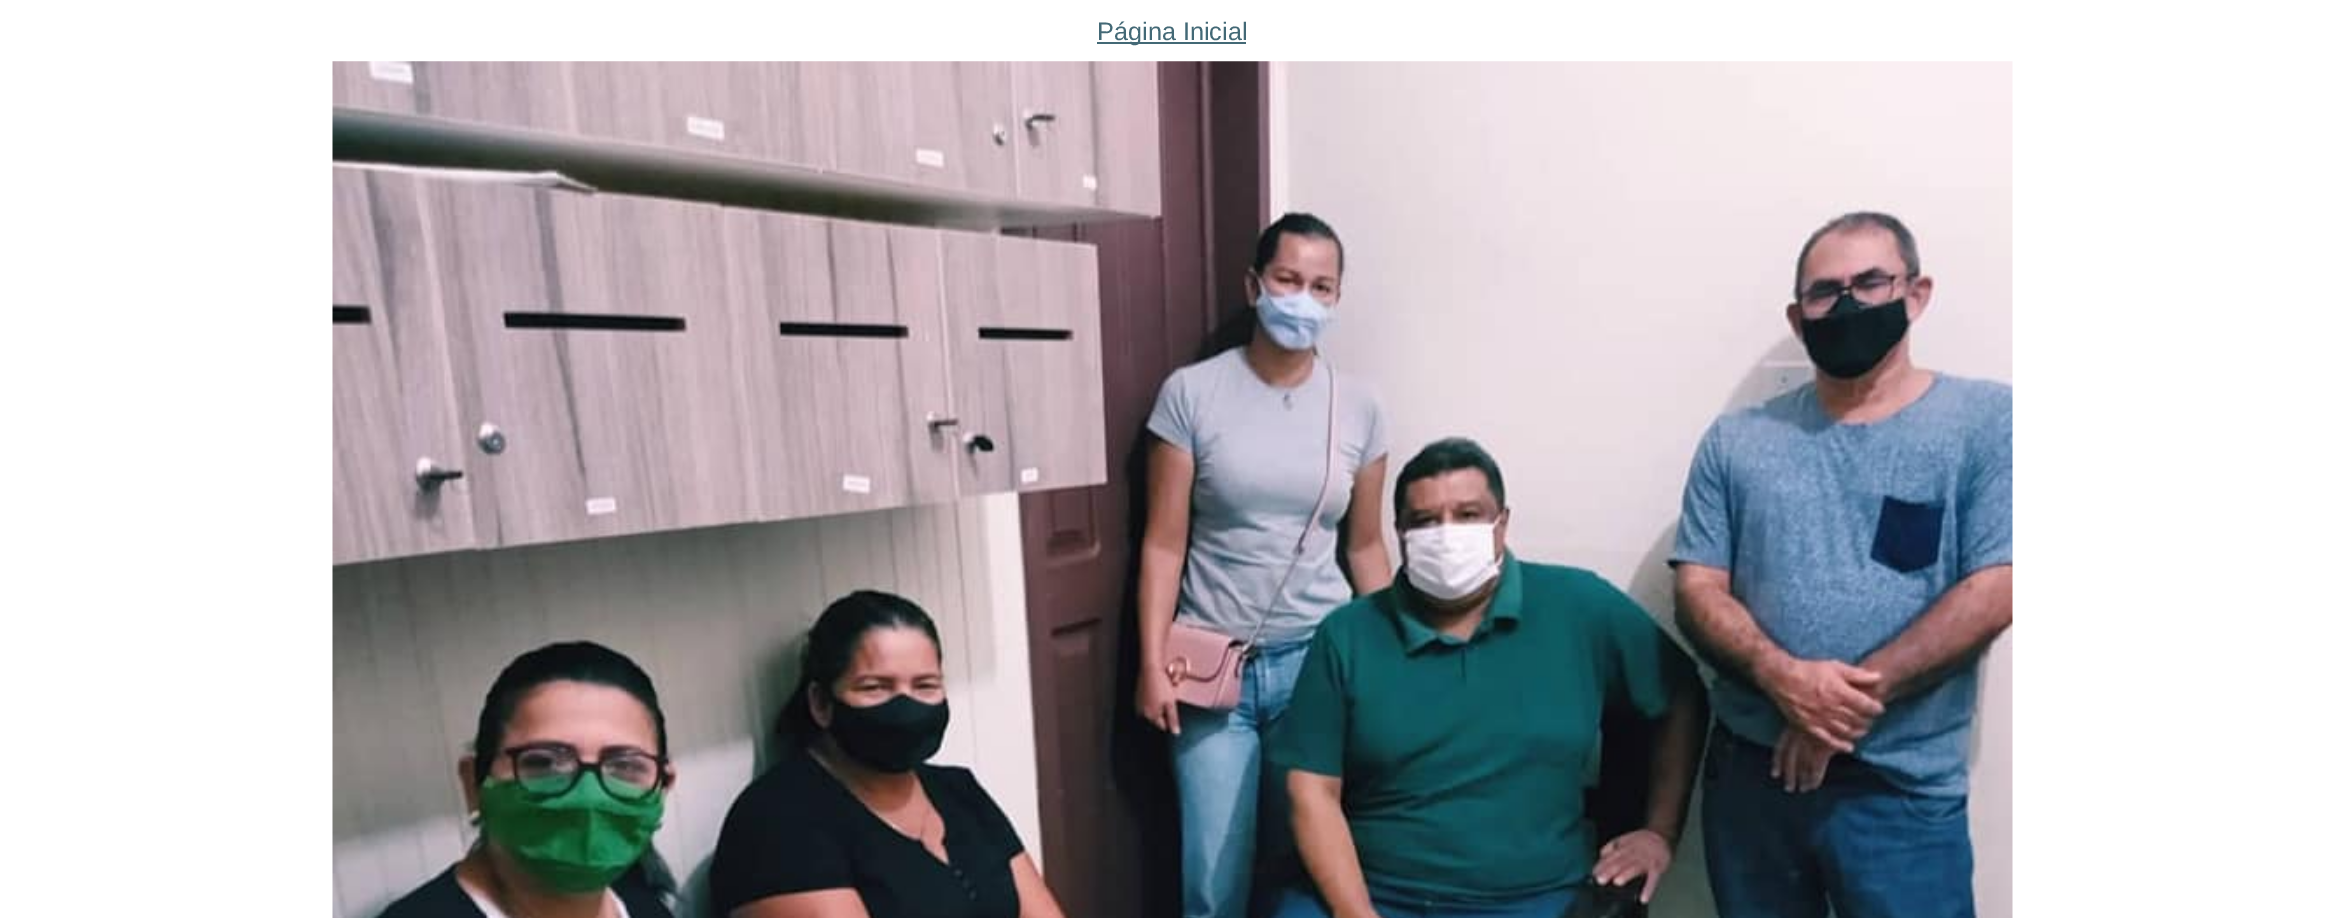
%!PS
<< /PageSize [2342 918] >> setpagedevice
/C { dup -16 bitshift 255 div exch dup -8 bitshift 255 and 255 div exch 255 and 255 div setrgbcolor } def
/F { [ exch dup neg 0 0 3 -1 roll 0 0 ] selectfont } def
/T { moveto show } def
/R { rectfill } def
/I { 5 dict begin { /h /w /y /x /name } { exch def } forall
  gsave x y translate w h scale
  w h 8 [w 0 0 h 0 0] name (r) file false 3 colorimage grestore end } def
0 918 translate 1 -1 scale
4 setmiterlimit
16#FFFFFF C
0 0 2342 918 R
16#436976 C
1097 42 149 2 R
/LiberationSans-Regular 25.25 F
(Página Inicial) 1097 40 T
(1.rgb) 332 61 1681 857 I
showpage
